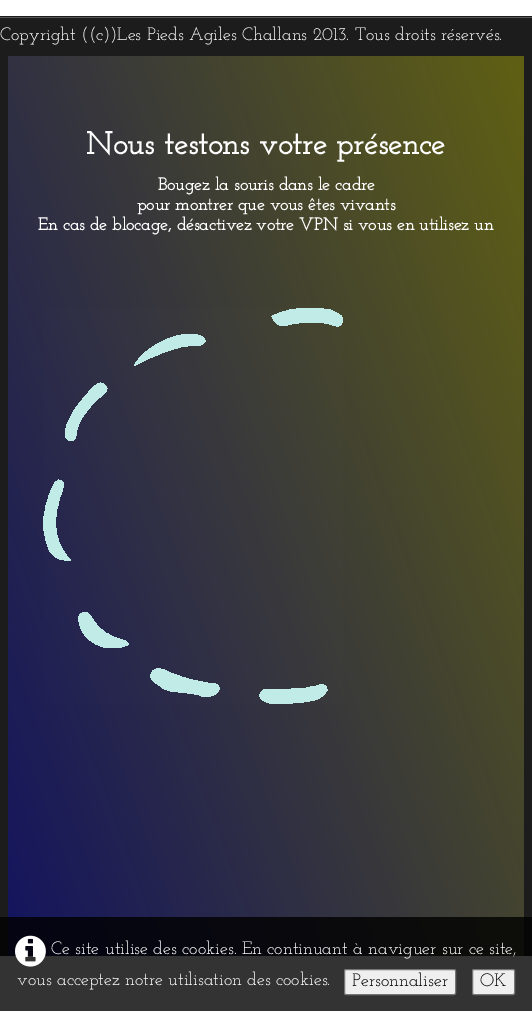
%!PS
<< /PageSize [532 1011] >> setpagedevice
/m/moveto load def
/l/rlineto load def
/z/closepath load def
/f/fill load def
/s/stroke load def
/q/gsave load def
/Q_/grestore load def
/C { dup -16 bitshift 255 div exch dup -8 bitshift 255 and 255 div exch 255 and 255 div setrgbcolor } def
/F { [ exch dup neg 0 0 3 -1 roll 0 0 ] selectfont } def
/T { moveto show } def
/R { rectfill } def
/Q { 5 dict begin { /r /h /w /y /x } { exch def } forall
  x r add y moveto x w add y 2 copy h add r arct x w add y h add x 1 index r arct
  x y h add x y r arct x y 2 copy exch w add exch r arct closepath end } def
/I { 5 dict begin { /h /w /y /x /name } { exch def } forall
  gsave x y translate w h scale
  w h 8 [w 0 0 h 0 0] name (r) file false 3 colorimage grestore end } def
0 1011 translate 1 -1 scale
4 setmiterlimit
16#FFFFFF C
0 0 532 1011 R
16#333333 C
0 956 532 55 R
16#1C1C1C C
0 16 532 901 R
16#060606 C
0 917 532 39 R
16#555555 C
0 17 532 1 R
/JosefinSlab-Thin 18 F
16#FFFFFF C
(Copyright \(\(c\)\)Les Pieds Agiles Challans 2013. Tous droits réservés.) 0 40 T
q 8 56 m 516 0 l 0 861 l -516 0 l z clip newpath
<< /ShadingType 2 /ColorSpace /DeviceRGB /Coords [-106 642 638 370] /Extend [true true] /Function << /FunctionType 2 /Domain [0 1] /C0 [.078 .078 .376] /C1 [.376 .376 .078] /N 1 >> >> shfill Q_
q 8 917 m 516 0 l 0 39 l -516 0 l z clip newpath
<< /ShadingType 2 /ColorSpace /DeviceRGB /Coords [-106 642 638 370] /Extend [true true] /Function << /FunctionType 2 /Domain [0 1] /C0 [.016 .016 .075] /C1 [.075 .075 .016] /N 1 >> >> shfill Q_
/JosefinSlab-Bold 31.5 F
(Nous testons votre présence) 86 154 T
/JosefinSlab-Bold 17.5 F
(Bougez la souris dans le cadre) 158 190 T
(pour montrer que vous êtes vivants) 137 210 T
(En cas de blocage, désactivez votre VPN si vous en utilisez un) 38 230 T
(1.rgb) 43 308 300 396 I
(2.rgb) 15 935 31 32 I
/JosefinSlab-Thin 18 F
(Ce site utilise des cookies. En continuant à naviguer sur ce site,) 51 954 T
(vous acceptez notre utilisation des cookies.) 17 985 T
16#EFEFEF C
344.5 969.5 111 25 1.5 Q q f Q_
16#767676 C
s
16#000000 C
(Personnaliser) 352 986 T
16#EFEFEF C
472.5 969.5 42 25 1.5 Q q f Q_
16#767676 C
s
16#000000 C
(OK) 480 986 T
showpage
